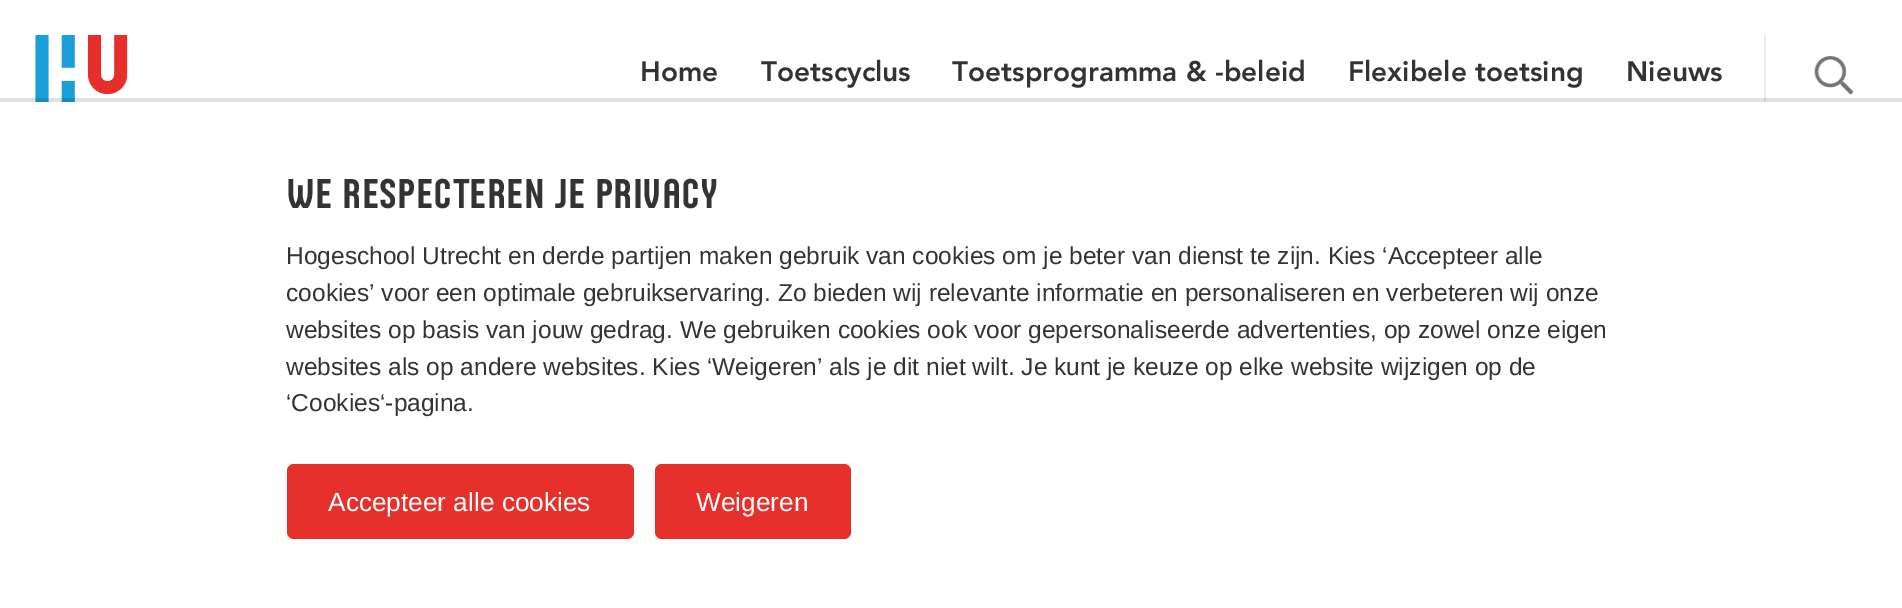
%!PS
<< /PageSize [1902 608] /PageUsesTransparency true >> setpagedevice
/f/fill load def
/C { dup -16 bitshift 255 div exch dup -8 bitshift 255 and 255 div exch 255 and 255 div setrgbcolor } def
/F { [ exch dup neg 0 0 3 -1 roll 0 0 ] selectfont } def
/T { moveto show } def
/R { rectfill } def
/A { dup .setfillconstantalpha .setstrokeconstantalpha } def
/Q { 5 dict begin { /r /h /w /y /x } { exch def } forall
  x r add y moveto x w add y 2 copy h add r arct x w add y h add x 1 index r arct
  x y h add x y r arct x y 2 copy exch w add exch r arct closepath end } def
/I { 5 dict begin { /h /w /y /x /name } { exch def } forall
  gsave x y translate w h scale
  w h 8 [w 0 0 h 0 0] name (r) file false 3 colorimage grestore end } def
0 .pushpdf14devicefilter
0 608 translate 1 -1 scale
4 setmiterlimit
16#FFFFFF C
0 0 1902 608 R
(1.rgb) 35 35 93 67 I
/Avenir-Black 28 F
16#333333 C
(Home) 640 81 T
(Toetscyclus) 761 81 T
(Toetsprogramma & -beleid) 952 81 T
(Flexibele toetsing) 1348 81 T
(Nieuws) 1626 81 T
16#ECECEC C
1764 35 2 67 R
(2.rgb) 1814 56 40 39 I
0.12 A
16#000000 C
0 98 1902 4 R
/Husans-Regular 42 F
1 A
16#333333 C
(We respecteren je privacy) 286 208 T
/LiberationSans-Regular 24.5 F
(Hogeschool Utrecht en derde partijen maken gebruik van cookies om je beter van dienst te zijn. Kies ‘Accepteer alle) 286 264 T
(cookies’ voor een optimale gebruikservaring. Zo bieden wij relevante informatie en personaliseren en verbeteren wij onze) 286 301 T
(websites op basis van jouw gedrag. We gebruiken cookies ook voor gepersonaliseerde advertenties, op zowel onze eigen) 286 338 T
(websites als op andere websites. Kies ‘Weigeren’ als je dit niet wilt. Je kunt je keuze op elke website wijzigen op de) 286 375 T
(‘Cookies‘-pagina.) 286 411 T
16#E6302B C
287 464 347 75 7 Q f
/LiberationSans-Regular 26.25 F
16#FFFFFF C
(Accepteer alle cookies) 328 511 T
16#E6302B C
655 464 196 75 7 Q f
16#FFFFFF C
(Weigeren) 696 511 T
.poppdf14devicefilter showpage
